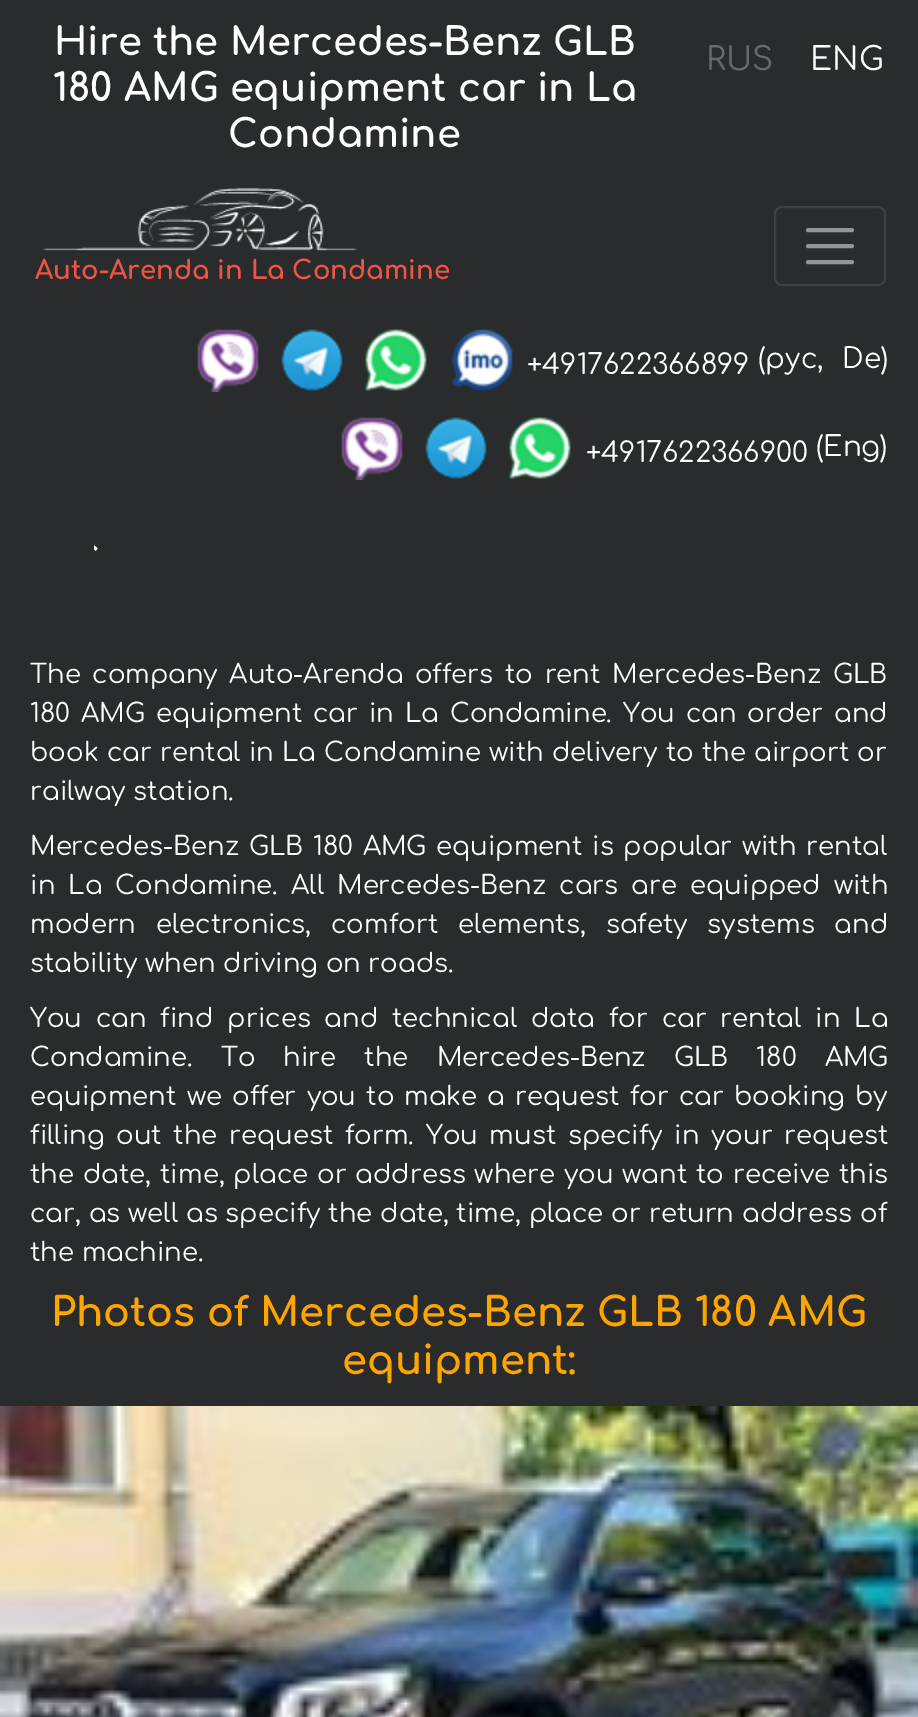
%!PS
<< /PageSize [918 1717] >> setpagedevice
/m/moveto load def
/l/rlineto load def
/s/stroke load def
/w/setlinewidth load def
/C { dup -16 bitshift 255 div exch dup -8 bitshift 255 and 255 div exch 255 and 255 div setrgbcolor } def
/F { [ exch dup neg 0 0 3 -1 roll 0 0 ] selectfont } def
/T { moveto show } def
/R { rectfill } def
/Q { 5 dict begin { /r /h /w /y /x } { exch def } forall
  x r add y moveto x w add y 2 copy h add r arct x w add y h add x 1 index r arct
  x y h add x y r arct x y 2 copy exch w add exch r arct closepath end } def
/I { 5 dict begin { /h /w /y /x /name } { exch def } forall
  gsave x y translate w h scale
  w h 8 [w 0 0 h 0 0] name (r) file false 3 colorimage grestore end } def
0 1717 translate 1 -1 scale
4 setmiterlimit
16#292B2C C
0 0 918 1717 R
/Comfortaa-Bold 38.4 F
16#FFFFFF C
(Hire the Mercedes-Benz GLB) 54 55 T
(180 AMG equipment car in La) 53 101 T
(Condamine) 228 147 T
/Comfortaa-Regular 32 F
16#696B6B C
(RUS) 706 70 T
16#FFFFFF C
(ENG) 810 70 T
(1.rgb) 42 187 316 64 I
/Comfortaa-Bold 26 F
16#EF5445 C
(Auto-Arenda in La Condamine) 35 279 T
16#3E4041 C
2 w
775 207 110 78 7 Q s
16#949596 C
4 w
1 setlinecap
808 230 m 44 0 l 808 246 m 44 0 l 808 262 m 44 0 l s
(2.rgb) 197 329 62 63 I
(3.rgb) 281 329 62 62 I
(4.rgb) 365 329 62 62 I
(5.rgb) 451 329 62 62 I
/Comfortaa-Regular 28 F
16#FFFFFF C
(+4917622366899) 527 374 T
(\(рус,) 758 368 T
(De\)) 842 368 T
(2.rgb) 341 417 62 63 I
(3.rgb) 425 417 62 62 I
(4.rgb) 509 417 62 62 I
(+4917622366900) 586 462 T
(\(Eng\)) 816 456 T
(6.rgb) 94 545 4 6 I
/Comfortaa-Regular 26 F
30 683 m 4 0 32 (The company Auto-Arenda offers to rent Mercedes-Benz GLB) widthshow
30 722 m 3.25 0 32 (180 AMG equipment car in La Condamine. You can order and) widthshow
30 761 m .5 0 32 (book car rental in La Condamine with delivery to the airport or) widthshow
(railway station.) 30 800 T
30 855 m 2 0 32 (Mercedes-Benz GLB 180 AMG equipment is popular with rental) widthshow
30 894 m 5.5 0 32 (in La Condamine. All Mercedes-Benz cars are equipped with) widthshow
30 933 m 12.25 0 32 (modern electronics, comfort elements, safety systems and) widthshow
(stability when driving on roads.) 30 972 T
30 1027 m 6.25 0 32 (You can find prices and technical data for car rental in La) widthshow
30 1066 m 20.5 0 32 (Condamine. To hire the Mercedes-Benz GLB 180 AMG) widthshow
30 1105 m 2.5 0 32 (equipment we offer you to make a request for car booking by) widthshow
30 1144 m 4 0 32 (filling out the request form. You must specify in your request) widthshow
30 1183 m 1.25 0 32 (the date, time, place or address where you want to receive this) widthshow
30 1222 m .25 0 32 (car, as well as specify the date, time, place or return address of) widthshow
(the machine.) 30 1261 T
/Comfortaa-Bold 40 F
16#FFA500 C
(Photos of Mercedes-Benz GLB 180 AMG) 51 1326 T
(equipment:) 342 1374 T
(7.rgb) 0 1406 918 311 I
showpage
